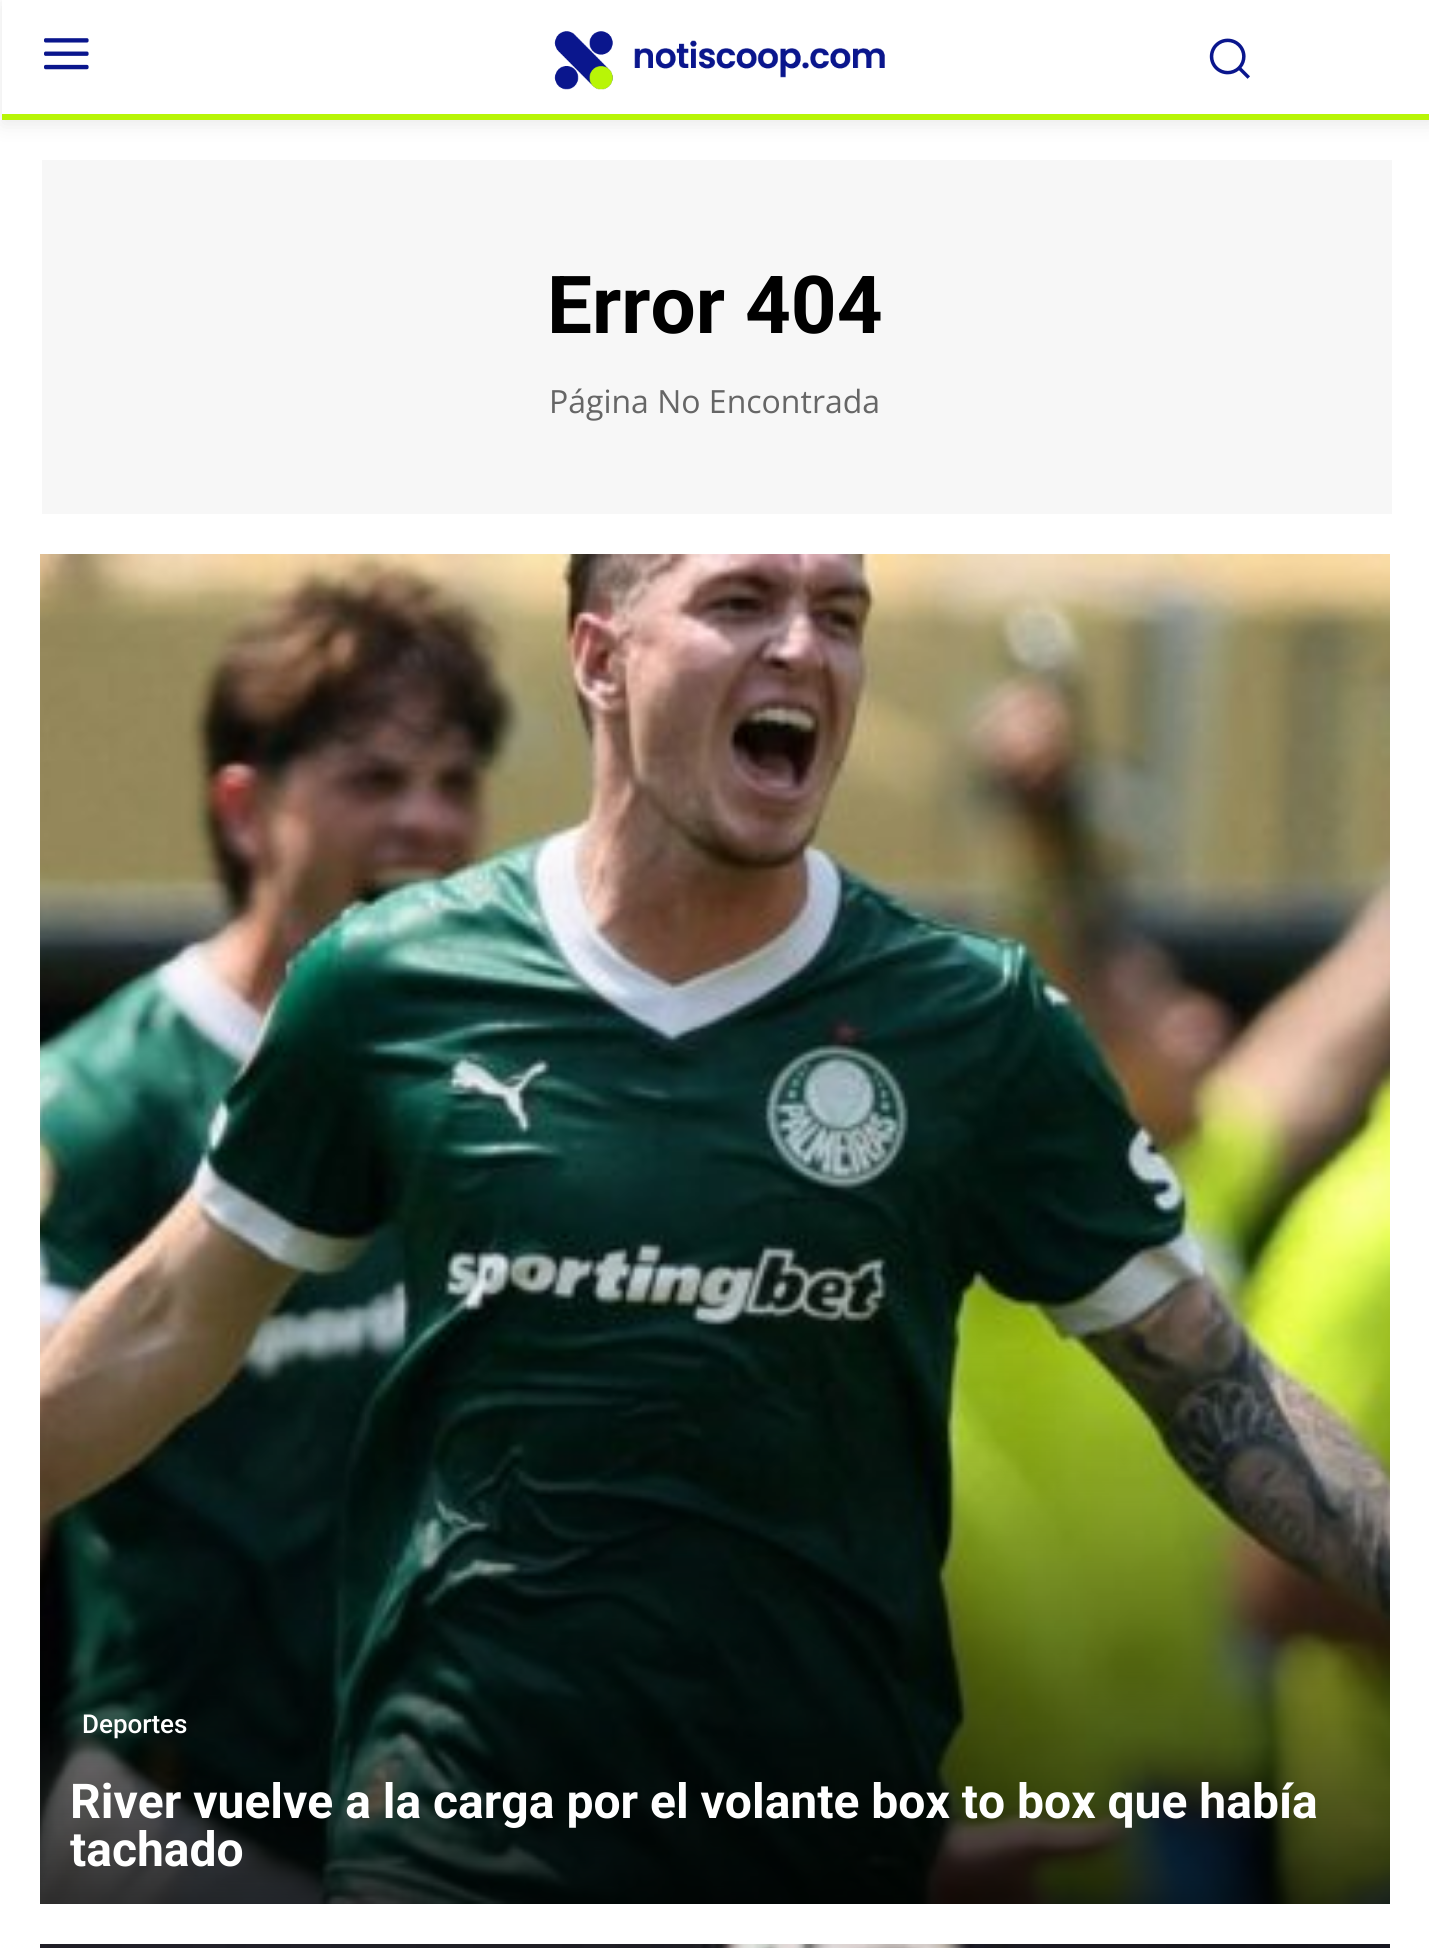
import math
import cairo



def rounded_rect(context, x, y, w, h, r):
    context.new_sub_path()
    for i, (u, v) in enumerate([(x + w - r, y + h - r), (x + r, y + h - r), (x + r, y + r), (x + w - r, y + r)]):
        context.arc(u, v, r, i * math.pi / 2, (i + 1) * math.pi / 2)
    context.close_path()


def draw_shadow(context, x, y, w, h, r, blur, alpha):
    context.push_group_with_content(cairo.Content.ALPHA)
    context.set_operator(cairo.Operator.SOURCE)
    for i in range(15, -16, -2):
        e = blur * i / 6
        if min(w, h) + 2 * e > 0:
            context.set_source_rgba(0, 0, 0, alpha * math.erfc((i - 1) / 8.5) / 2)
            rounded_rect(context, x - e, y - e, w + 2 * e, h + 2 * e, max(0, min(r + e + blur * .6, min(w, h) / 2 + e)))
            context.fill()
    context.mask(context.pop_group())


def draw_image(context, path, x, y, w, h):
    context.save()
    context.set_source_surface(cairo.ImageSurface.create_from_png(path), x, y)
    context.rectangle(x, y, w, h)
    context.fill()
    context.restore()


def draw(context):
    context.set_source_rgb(1, 1, 1)
    context.paint()
    draw_image(context, "images/1.png", 44, 38, 45, 32)
    draw_image(context, "images/2.png", 554, 31, 331, 59)
    draw_image(context, "images/3.png", 1209, 38, 41, 41)
    context.set_source_rgb(184 / 255, 245 / 255, 7 / 255)
    context.rectangle(2, 114, 1427, 6)
    context.fill()
    context.save()
    context.set_fill_rule(cairo.FillRule.EVEN_ODD)
    context.new_path()
    context.move_to(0, 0)
    context.line_to(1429, 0)
    context.line_to(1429, 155)
    context.line_to(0, 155)
    context.close_path()
    context.move_to(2, 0)
    context.line_to(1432, 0)
    context.line_to(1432, 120)
    context.line_to(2, 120)
    context.close_path()
    context.clip()
    context.set_source_rgb(0, 0, 0)
    draw_shadow(context, 2, 4, 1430, 120, 0, 10, 0.09)
    context.restore()
    context.set_source_rgb(247 / 255, 247 / 255, 247 / 255)
    context.rectangle(42, 160, 1350, 354)
    context.fill()
    draw_image(context, "images/4.png", 40, 554, 1350, 1350)
    draw_image(context, "images/5.png", 40, 1944, 1350, 4)
    context.select_font_face("Roboto", cairo.FontSlant.NORMAL, cairo.FontWeight.BOLD)
    context.set_font_size(80)
    context.set_source_rgb(0, 0, 0)
    context.move_to(547, 333)
    context.show_text("Error 404")
    context.select_font_face("Open Sans")
    context.set_font_size(32)
    context.set_source_rgb(102 / 255, 102 / 255, 102 / 255)
    context.move_to(549, 413)
    context.show_text("Página No Encontrada")
    context.select_font_face("Roboto Medium")
    context.set_font_size(26)
    context.set_source_rgb(1, 1, 1)
    context.move_to(82, 1733)
    context.show_text("Deportes")
    context.select_font_face("Roboto", cairo.FontSlant.NORMAL, cairo.FontWeight.BOLD)
    context.set_font_size(48)
    context.move_to(70, 1818)
    context.show_text("River vuelve a la carga por el volante box to box que había")
    context.move_to(70, 1866)
    context.show_text("tachado")


surface = cairo.ImageSurface(cairo.Format.RGB24, 1429, 1948)
context = cairo.Context(surface)
options = cairo.FontOptions()
options.set_hint_metrics(cairo.HintMetrics.OFF)
options.set_hint_style(cairo.HintStyle.NONE)
context.set_font_options(options)
context.set_miter_limit(4)
draw(context)
surface.write_to_png("out.png")
